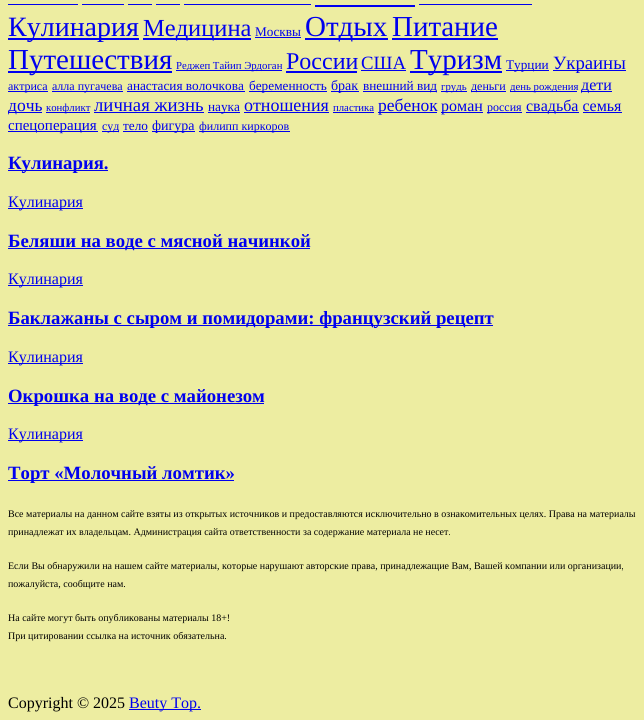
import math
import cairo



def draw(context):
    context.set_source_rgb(237 / 255, 237 / 255, 161 / 255)
    context.paint()
    context.set_source_rgb(0, 0, 238 / 255)
    context.rectangle(8, 4, 70, 1)
    context.fill()
    context.rectangle(82, 4, 42, 1)
    context.fill()
    context.rectangle(128, 4, 24, 1)
    context.fill()
    context.rectangle(156, 4, 24, 1)
    context.fill()
    context.rectangle(184, 4, 127, 1)
    context.fill()
    context.rectangle(419, 4, 113, 1)
    context.fill()
    context.rectangle(315, 5, 100, 2)
    context.fill()
    context.rectangle(8, 38, 131, 2)
    context.fill()
    context.rectangle(143, 38, 108, 2)
    context.fill()
    context.rectangle(255, 37, 46, 1)
    context.fill()
    context.rectangle(305, 38, 83, 2)
    context.fill()
    context.rectangle(392, 38, 106, 2)
    context.fill()
    context.rectangle(8, 71, 164, 2)
    context.fill()
    context.rectangle(176, 70, 106, 1)
    context.fill()
    context.rectangle(286, 71, 71, 2)
    context.fill()
    context.rectangle(361, 70, 45, 1)
    context.fill()
    context.rectangle(410, 71, 92, 2)
    context.fill()
    context.rectangle(506, 70, 43, 1)
    context.fill()
    context.rectangle(553, 70, 73, 1)
    context.fill()
    context.rectangle(8, 91, 40, 1)
    context.fill()
    context.rectangle(52, 91, 71, 1)
    context.fill()
    context.rectangle(127, 91, 118, 1)
    context.fill()
    context.rectangle(249, 91, 78, 1)
    context.fill()
    context.rectangle(331, 91, 28, 1)
    context.fill()
    context.rectangle(363, 91, 74, 1)
    context.fill()
    context.rectangle(441, 91, 26, 1)
    context.fill()
    context.rectangle(471, 91, 35, 1)
    context.fill()
    context.rectangle(510, 91, 67, 1)
    context.fill()
    context.rectangle(581, 91, 31, 1)
    context.fill()
    context.rectangle(8, 112, 34, 1)
    context.fill()
    context.rectangle(46, 112, 44, 1)
    context.fill()
    context.rectangle(94, 112, 110, 1)
    context.fill()
    context.rectangle(208, 112, 32, 1)
    context.fill()
    context.rectangle(244, 112, 85, 1)
    context.fill()
    context.rectangle(333, 112, 41, 1)
    context.fill()
    context.rectangle(378, 112, 59, 1)
    context.fill()
    context.rectangle(441, 112, 42, 1)
    context.fill()
    context.rectangle(487, 112, 35, 1)
    context.fill()
    context.rectangle(526, 112, 53, 1)
    context.fill()
    context.rectangle(583, 112, 39, 1)
    context.fill()
    context.rectangle(8, 131, 90, 1)
    context.fill()
    context.rectangle(102, 131, 17, 1)
    context.fill()
    context.rectangle(123, 131, 25, 1)
    context.fill()
    context.rectangle(152, 131, 43, 1)
    context.fill()
    context.rectangle(199, 131, 91, 1)
    context.fill()
    context.rectangle(8, 170, 100, 1)
    context.fill()
    context.rectangle(8, 208, 75, 1)
    context.fill()
    context.rectangle(8, 248, 302, 1)
    context.fill()
    context.rectangle(8, 285, 75, 1)
    context.fill()
    context.rectangle(8, 325, 485, 1)
    context.fill()
    context.rectangle(8, 363, 75, 1)
    context.fill()
    context.rectangle(8, 403, 256, 1)
    context.fill()
    context.rectangle(8, 440, 75, 1)
    context.fill()
    context.rectangle(8, 480, 226, 1)
    context.fill()
    context.rectangle(129, 709, 72, 1)
    context.fill()
    context.select_font_face("Liberation Serif")
    context.set_font_size(28)
    context.move_to(8, 36)
    context.show_text("Кулинария")
    context.set_font_size(24.5)
    context.move_to(143, 36)
    context.show_text("Медицина")
    context.set_font_size(13.25)
    context.move_to(255, 36)
    context.show_text("Москвы")
    context.set_font_size(29)
    context.move_to(305, 36)
    context.show_text("Отдых")
    context.move_to(392, 36)
    context.show_text("Питание")
    context.move_to(8, 69)
    context.show_text("Путешествия")
    context.set_font_size(10.75)
    context.move_to(176, 69)
    context.show_text("Реджеп Тайип Эрдоган")
    context.set_font_size(24)
    context.move_to(286, 69)
    context.show_text("России")
    context.set_font_size(18.75)
    context.move_to(361, 69)
    context.show_text("США")
    context.set_font_size(29)
    context.move_to(410, 69)
    context.show_text("Туризм")
    context.set_font_size(13.25)
    context.move_to(506, 69)
    context.show_text("Турции")
    context.set_font_size(18.75)
    context.move_to(553, 69)
    context.show_text("Украины")
    context.set_font_size(12)
    context.move_to(8, 90)
    context.show_text("актриса")
    context.move_to(52, 90)
    context.show_text("алла пугачева")
    context.set_font_size(13.25)
    context.move_to(127, 90)
    context.show_text("анастасия волочкова")
    context.move_to(249, 90)
    context.show_text("беременность")
    context.set_font_size(14)
    context.move_to(331, 90)
    context.show_text("брак")
    context.set_font_size(13.25)
    context.move_to(363, 90)
    context.show_text("внешний вид")
    context.set_font_size(10.75)
    context.move_to(441, 90)
    context.show_text("грудь")
    context.set_font_size(12)
    context.move_to(471, 90)
    context.show_text("деньги")
    context.set_font_size(10.75)
    context.move_to(510, 90)
    context.show_text("день рождения")
    context.set_font_size(16)
    context.move_to(581, 90)
    context.show_text("дети")
    context.set_font_size(17.5)
    context.move_to(8, 111)
    context.show_text("дочь")
    context.set_font_size(10.75)
    context.move_to(46, 111)
    context.show_text("конфликт")
    context.set_font_size(18.75)
    context.move_to(94, 111)
    context.show_text("личная жизнь")
    context.set_font_size(13.25)
    context.move_to(208, 111)
    context.show_text("наука")
    context.set_font_size(18)
    context.move_to(244, 111)
    context.show_text("отношения")
    context.set_font_size(10.75)
    context.move_to(333, 111)
    context.show_text("пластика")
    context.set_font_size(17.5)
    context.move_to(378, 111)
    context.show_text("ребенок")
    context.set_font_size(16)
    context.move_to(441, 111)
    context.show_text("роман")
    context.set_font_size(12)
    context.move_to(487, 111)
    context.show_text("россия")
    context.set_font_size(16)
    context.move_to(526, 111)
    context.show_text("свадьба семья")
    context.set_font_size(15)
    context.move_to(8, 130)
    context.show_text("спецоперация")
    context.set_font_size(12)
    context.move_to(102, 130)
    context.show_text("суд")
    context.set_font_size(13.25)
    context.move_to(123, 130)
    context.show_text("тело")
    context.set_font_size(14)
    context.move_to(152, 130)
    context.show_text("фигура")
    context.set_font_size(12)
    context.move_to(199, 130)
    context.show_text("филипп киркоров")
    context.select_font_face("Liberation Serif", cairo.FontSlant.NORMAL, cairo.FontWeight.BOLD)
    context.set_font_size(18.75)
    context.move_to(8, 169)
    context.show_text("Кулинария.")
    context.select_font_face("Liberation Serif")
    context.set_font_size(16)
    context.move_to(8, 207)
    context.show_text("Кулинария")
    context.select_font_face("Liberation Serif", cairo.FontSlant.NORMAL, cairo.FontWeight.BOLD)
    context.set_font_size(18.75)
    context.move_to(8, 247)
    context.show_text("Беляши на воде с мясной начинкой")
    context.select_font_face("Liberation Serif")
    context.set_font_size(16)
    context.move_to(8, 284)
    context.show_text("Кулинария")
    context.select_font_face("Liberation Serif", cairo.FontSlant.NORMAL, cairo.FontWeight.BOLD)
    context.set_font_size(18.75)
    context.move_to(8, 324)
    context.show_text("Баклажаны с сыром и помидорами: французский рецепт")
    context.select_font_face("Liberation Serif")
    context.set_font_size(16)
    context.move_to(8, 362)
    context.show_text("Кулинария")
    context.select_font_face("Liberation Serif", cairo.FontSlant.NORMAL, cairo.FontWeight.BOLD)
    context.set_font_size(18.75)
    context.move_to(8, 402)
    context.show_text("Окрошка на воде с майонезом")
    context.select_font_face("Liberation Serif")
    context.set_font_size(16)
    context.move_to(8, 439)
    context.show_text("Кулинария")
    context.select_font_face("Liberation Serif", cairo.FontSlant.NORMAL, cairo.FontWeight.BOLD)
    context.set_font_size(18.75)
    context.move_to(8, 479)
    context.show_text("Торт «Молочный ломтик»")
    context.select_font_face("Liberation Serif")
    context.set_font_size(10)
    context.set_source_rgb(0, 0, 0)
    context.move_to(8, 517)
    context.show_text("Все материалы на данном сайте взяты из открытых источников и предоставляются исключительно в ознакомительных целях. Права на материалы")
    context.move_to(8, 535)
    context.show_text("принадлежат их владельцам. Администрация сайта ответственности за содержание материала не несет.")
    context.move_to(8, 569)
    context.show_text("Если Вы обнаружили на нашем сайте материалы, которые нарушают авторские права, принадлежащие Вам, Вашей компании или организации,")
    context.move_to(8, 587)
    context.show_text("пожалуйста, сообщите нам.")
    context.move_to(8, 621)
    context.show_text("На сайте могут быть опубликованы материалы 18+!")
    context.move_to(8, 639)
    context.show_text("При цитировании ссылка на источник обязательна.")
    context.set_font_size(16)
    context.move_to(8, 708)
    context.show_text("Copyright © 2025")
    context.set_source_rgb(0, 0, 238 / 255)
    context.move_to(129, 708)
    context.show_text("Beuty Top.")


surface = cairo.ImageSurface(cairo.Format.RGB24, 644, 720)
context = cairo.Context(surface)
options = cairo.FontOptions()
options.set_hint_metrics(cairo.HintMetrics.OFF)
options.set_hint_style(cairo.HintStyle.NONE)
context.set_font_options(options)
context.set_miter_limit(4)
draw(context)
surface.write_to_png("out.png")
